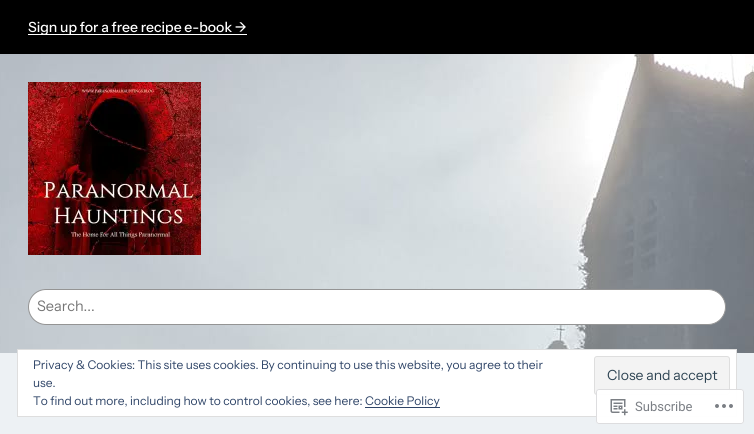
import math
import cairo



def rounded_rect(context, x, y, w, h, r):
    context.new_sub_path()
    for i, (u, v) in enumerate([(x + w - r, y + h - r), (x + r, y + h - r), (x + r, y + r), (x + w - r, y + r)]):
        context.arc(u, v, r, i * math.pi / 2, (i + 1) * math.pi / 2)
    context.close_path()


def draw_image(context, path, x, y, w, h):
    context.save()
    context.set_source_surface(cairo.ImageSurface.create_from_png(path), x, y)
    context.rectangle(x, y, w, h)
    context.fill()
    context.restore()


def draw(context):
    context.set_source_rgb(1, 1, 1)
    context.paint()
    draw_image(context, "images/1.png", 0, 54, 754, 299)
    context.set_source_rgb(0, 0, 0)
    context.rectangle(0, 0, 754, 54)
    context.fill()
    context.set_source_rgb(1, 1, 1)
    context.rectangle(28, 34, 219, 1)
    context.fill()
    draw_image(context, "images/2.png", 28, 82, 173, 173)
    rounded_rect(context, 28.5, 289.5, 697, 35, 17.5)
    context.fill_preserve()
    context.set_source_rgb(148 / 255, 148 / 255, 148 / 255)
    context.set_line_width(1)
    context.stroke()
    context.set_source_rgb(237 / 255, 241 / 255, 244 / 255)
    context.rectangle(0, 353, 754, 81)
    context.fill()
    context.set_source_rgb(1, 1, 1)
    context.rectangle(17.5, 349.5, 719, 67)
    context.fill_preserve()
    context.set_source_rgb(222 / 255, 222 / 255, 222 / 255)
    context.stroke()
    context.set_source_rgb(243 / 255, 243 / 255, 243 / 255)
    rounded_rect(context, 594.5, 356.5, 135, 38, 2.5)
    context.fill_preserve()
    context.set_source_rgb(222 / 255, 222 / 255, 222 / 255)
    context.stroke()
    context.set_source_rgb(46 / 255, 68 / 255, 103 / 255)
    context.rectangle(365, 407, 75, 1)
    context.fill()
    context.set_source_rgba(1, 1, 1, 0.98)
    rounded_rect(context, 596, 389, 148, 35, 3)
    context.fill()
    rounded_rect(context, 596.5, 389.5, 147, 34, 2.5)
    context.set_source_rgba(220 / 255, 220 / 255, 222 / 255, 0.98)
    context.stroke()
    draw_image(context, "images/3.png", 610, 399, 18, 17)
    draw_image(context, "images/4.png", 715, 404, 18, 4)
    context.select_font_face("Instrument Sans Medium")
    context.set_font_size(14)
    context.set_source_rgb(1, 1, 1)
    context.move_to(28, 32)
    context.show_text("Sign up for a free recipe e-book →")
    context.select_font_face("Instrument Sans")
    context.set_font_size(14.5)
    context.set_source_rgb(117 / 255, 117 / 255, 117 / 255)
    context.move_to(37, 311)
    context.show_text("Search...")
    context.set_font_size(12)
    context.set_source_rgb(46 / 255, 68 / 255, 103 / 255)
    context.move_to(33, 369)
    context.show_text("Privacy & Cookies: This site uses cookies. By continuing to use this website, you agree to their")
    context.set_font_size(14)
    context.set_source_rgb(46 / 255, 68 / 255, 83 / 255)
    context.move_to(607, 380)
    context.show_text("Close and accept")
    context.set_font_size(12)
    context.set_source_rgb(46 / 255, 68 / 255, 103 / 255)
    context.move_to(33, 387)
    context.show_text("use.")
    context.move_to(33, 405)
    context.show_text("To find out more, including how to control cookies, see here:")
    context.move_to(365, 405)
    context.show_text("Cookie Policy")
    context.select_font_face("Roboto")
    context.set_font_size(13)
    context.set_source_rgb(123 / 255, 127 / 255, 133 / 255)
    context.move_to(635, 411)
    context.show_text("Subscribe")


surface = cairo.ImageSurface(cairo.Format.RGB24, 754, 434)
context = cairo.Context(surface)
options = cairo.FontOptions()
options.set_hint_metrics(cairo.HintMetrics.OFF)
options.set_hint_style(cairo.HintStyle.NONE)
context.set_font_options(options)
context.set_miter_limit(4)
draw(context)
surface.write_to_png("out.png")
